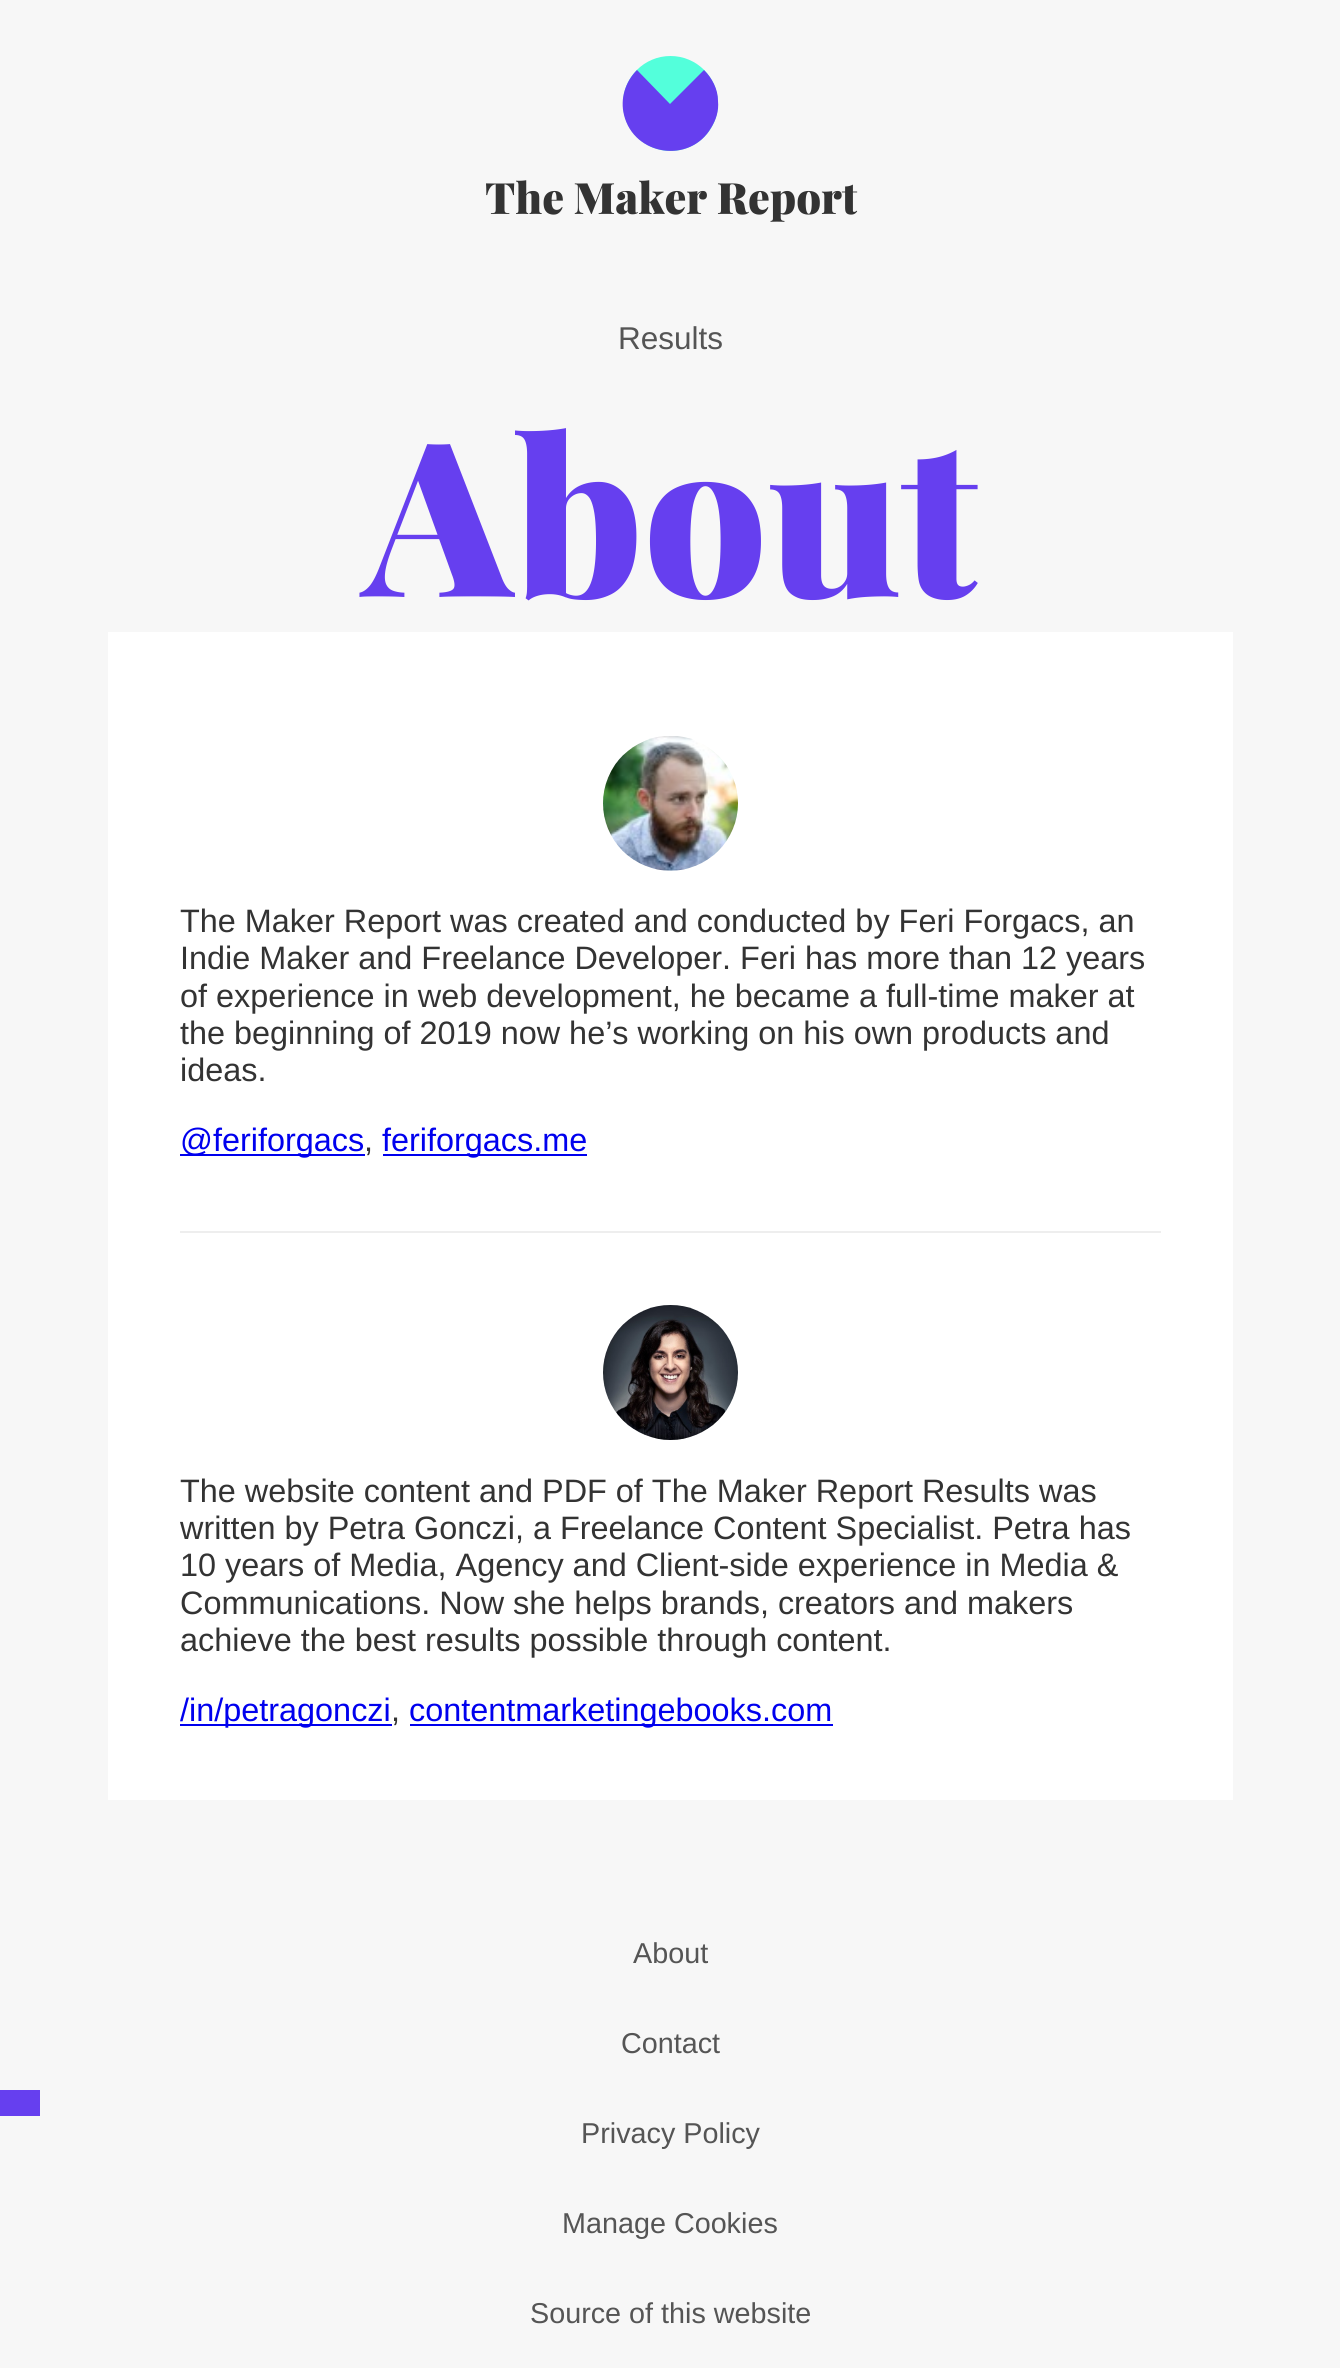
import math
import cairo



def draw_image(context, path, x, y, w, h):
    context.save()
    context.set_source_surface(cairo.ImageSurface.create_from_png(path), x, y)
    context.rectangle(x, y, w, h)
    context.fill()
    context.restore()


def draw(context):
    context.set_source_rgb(247 / 255, 247 / 255, 247 / 255)
    context.paint()
    context.set_source_rgb(102 / 255, 63 / 255, 239 / 255)
    context.rectangle(0, 2090, 40, 26)
    context.fill()
    context.set_source_rgb(83 / 255, 1, 219 / 255)
    context.arc(670.5, 103.5, 47.5, 0, 2 * math.pi)
    context.fill()
    context.set_source_rgb(102 / 255, 63 / 255, 239 / 255)
    context.new_path()
    context.move_to(704, 70)
    context.curve_to(712, 78, 718, 89, 718, 101)
    context.curve_to(719, 111, 716, 120, 711, 128)
    context.curve_to(690, 164, 634, 156, 624, 115)
    context.curve_to(620, 99, 625, 82, 637, 70)
    context.line_to(670, 104)
    context.close_path()
    context.fill()
    context.set_source_rgb(1, 1, 1)
    context.rectangle(108, 632, 1125, 1168)
    context.fill()
    draw_image(context, "images/1.png", 603, 736, 135, 135)
    context.set_source_rgb(0, 0, 238 / 255)
    context.rectangle(180, 1154, 185, 2)
    context.fill()
    context.rectangle(383, 1154, 204, 2)
    context.fill()
    context.set_source_rgb(238 / 255, 238 / 255, 238 / 255)
    context.rectangle(180, 1231, 981, 2)
    context.fill()
    draw_image(context, "images/2.png", 603, 1305, 135, 135)
    context.set_source_rgb(0, 0, 238 / 255)
    context.rectangle(180, 1724, 212, 2)
    context.fill()
    context.rectangle(410, 1724, 423, 2)
    context.fill()
    context.select_font_face("Playfair Display Black")
    context.set_font_size(43.25)
    context.set_source_rgb(51 / 255, 51 / 255, 51 / 255)
    context.move_to(485, 214)
    context.show_text("The Maker Report")
    context.select_font_face("Liberation Sans")
    context.set_font_size(31.5)
    context.set_source_rgb(85 / 255, 85 / 255, 85 / 255)
    context.move_to(618, 349)
    context.show_text("Results")
    context.select_font_face("Playfair Display Black")
    context.set_font_size(216)
    context.set_source_rgb(102 / 255, 63 / 255, 239 / 255)
    context.move_to(364, 597)
    context.show_text("About")
    context.select_font_face("Liberation Sans")
    context.set_font_size(32.4)
    context.set_source_rgb(51 / 255, 51 / 255, 51 / 255)
    context.move_to(180, 932)
    context.show_text("The Maker Report was created and conducted by Feri Forgacs, an")
    context.move_to(180, 969)
    context.show_text("Indie Maker and Freelance Developer. Feri has more than 12 years")
    context.move_to(180, 1007)
    context.show_text("of experience in web development, he became a full-time maker at")
    context.move_to(180, 1044)
    context.show_text("the beginning of 2019 now he’s working on his own products and")
    context.move_to(180, 1081)
    context.show_text("ideas.")
    context.set_source_rgb(0, 0, 238 / 255)
    context.move_to(180, 1151)
    context.show_text("@feriforgacs")
    context.set_source_rgb(51 / 255, 51 / 255, 51 / 255)
    context.move_to(364, 1151)
    context.show_text(",")
    context.set_source_rgb(0, 0, 238 / 255)
    context.move_to(382, 1151)
    context.show_text("feriforgacs.me")
    context.set_source_rgb(51 / 255, 51 / 255, 51 / 255)
    context.move_to(180, 1502)
    context.show_text("The website content and PDF of The Maker Report Results was")
    context.move_to(180, 1539)
    context.show_text("written by Petra Gonczi, a Freelance Content Specialist. Petra has")
    context.move_to(180, 1576)
    context.show_text("10 years of Media, Agency and Client-side experience in Media &")
    context.move_to(180, 1614)
    context.show_text("Communications. Now she helps brands, creators and makers")
    context.move_to(180, 1651)
    context.show_text("achieve the best results possible through content.")
    context.set_source_rgb(0, 0, 238 / 255)
    context.move_to(180, 1721)
    context.show_text("/in/petragonczi")
    context.set_source_rgb(51 / 255, 51 / 255, 51 / 255)
    context.move_to(391, 1721)
    context.show_text(",")
    context.set_source_rgb(0, 0, 238 / 255)
    context.move_to(409, 1721)
    context.show_text("contentmarketingebooks.com")
    context.set_font_size(28.75)
    context.set_source_rgb(85 / 255, 85 / 255, 85 / 255)
    context.move_to(633, 1963)
    context.show_text("About")
    context.move_to(621, 2053)
    context.show_text("Contact")
    context.move_to(581, 2143)
    context.show_text("Privacy Policy")
    context.move_to(562, 2233)
    context.show_text("Manage Cookies")
    context.move_to(530, 2323)
    context.show_text("Source of this website")


surface = cairo.ImageSurface(cairo.Format.RGB24, 1340, 2368)
context = cairo.Context(surface)
options = cairo.FontOptions()
options.set_hint_metrics(cairo.HintMetrics.OFF)
options.set_hint_style(cairo.HintStyle.NONE)
context.set_font_options(options)
context.set_miter_limit(4)
draw(context)
surface.write_to_png("out.png")
